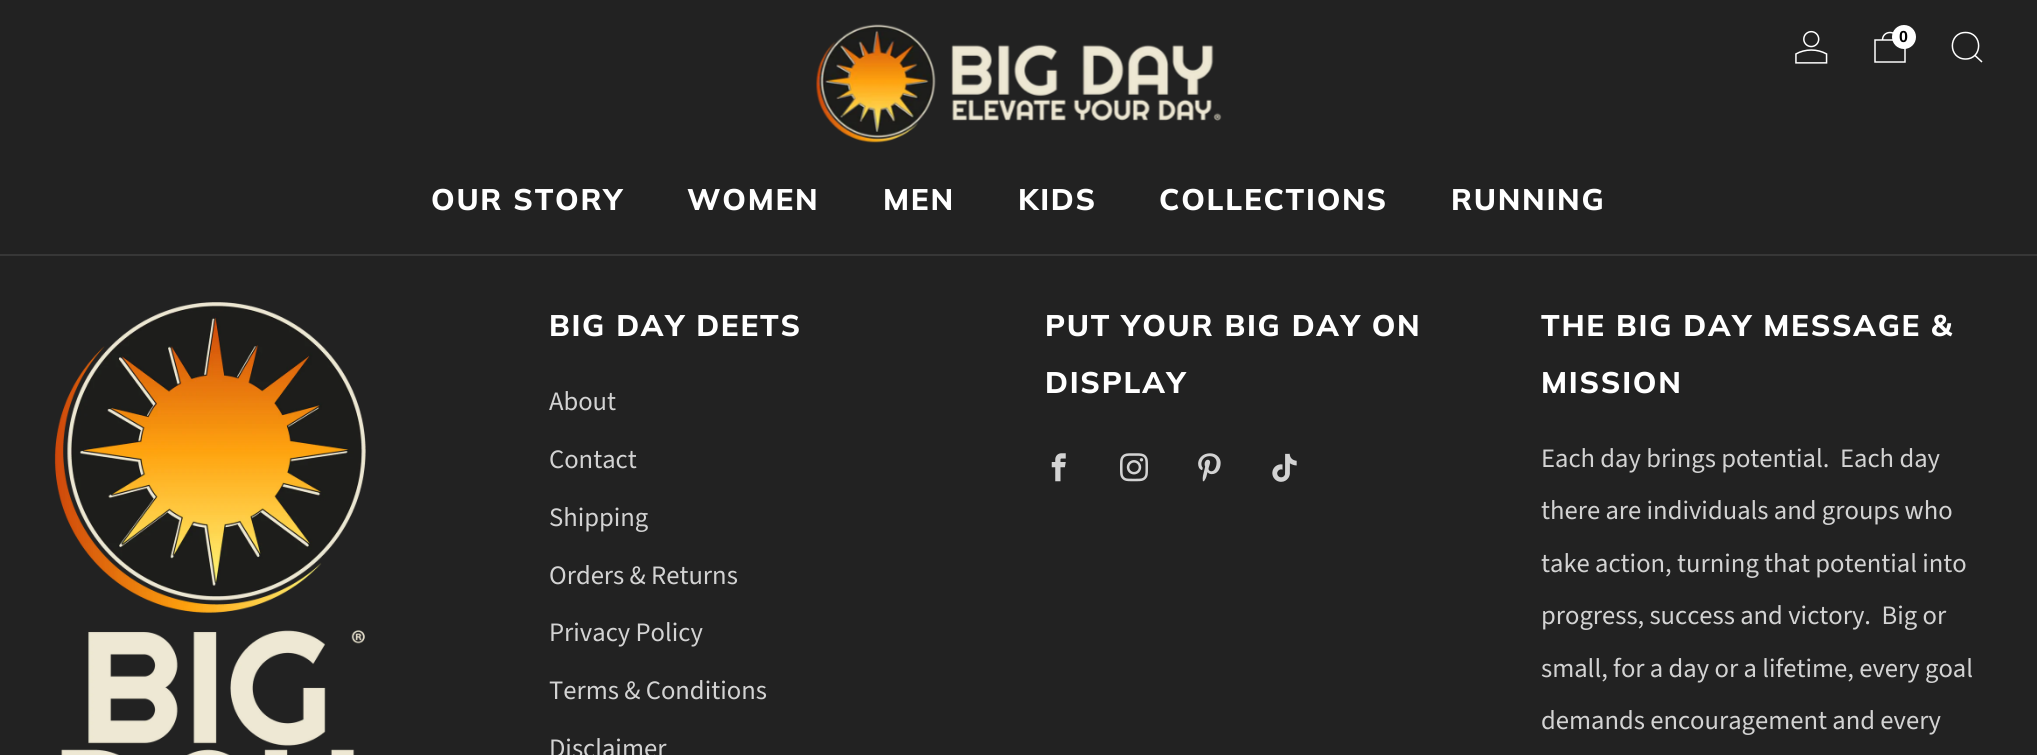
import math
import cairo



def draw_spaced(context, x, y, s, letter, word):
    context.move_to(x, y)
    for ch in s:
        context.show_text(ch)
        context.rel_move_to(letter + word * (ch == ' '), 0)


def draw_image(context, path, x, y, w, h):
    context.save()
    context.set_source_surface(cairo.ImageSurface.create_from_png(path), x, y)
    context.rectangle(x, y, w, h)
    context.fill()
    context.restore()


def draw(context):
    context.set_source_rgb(34 / 255, 34 / 255, 34 / 255)
    context.paint()
    context.set_source_rgb(55 / 255, 55 / 255, 55 / 255)
    context.rectangle(0, 254, 2037, 2)
    context.fill()
    draw_image(context, "images/1.png", 816, 24, 406, 119)
    draw_image(context, "images/2.png", 1795, 30, 33, 34)
    context.new_path()
    context.move_to(1875, 40)
    context.line_to(1905, 40)
    context.line_to(1905, 62)
    context.line_to(1875, 62)
    context.close_path()
    context.move_to(1897.5, 40)
    context.curve_to(1897.5, 30, 1882.5, 30, 1882.5, 40)
    context.set_source_rgb(1, 1, 1)
    context.set_line_width(1.5)
    context.stroke()
    context.arc(1904, 37, 12, 0, 2 * math.pi)
    context.fill()
    context.new_path()
    context.move_to(1965.5, 59)
    context.curve_to(1983, 59, 1983, 32.5, 1965.5, 32.5)
    context.curve_to(1948, 32.5, 1948, 59, 1965.5, 59)
    context.close_path()
    context.move_to(1975, 55.5)
    context.line_to(1982, 62)
    context.stroke()
    draw_image(context, "images/3.png", 54, 302, 312, 453)
    draw_image(context, "images/4.png", 1051, 453, 15, 29)
    draw_image(context, "images/5.png", 1120, 453, 28, 29)
    draw_image(context, "images/6.png", 1198, 453, 23, 29)
    draw_image(context, "images/7.png", 1272, 453, 25, 29)
    context.select_font_face("Liberation Sans", cairo.FontSlant.NORMAL, cairo.FontWeight.BOLD)
    context.set_font_size(16)
    context.set_source_rgb(0, 0, 0)
    context.move_to(1899, 42)
    context.show_text("0")
    context.select_font_face("Muli ExtraBold")
    context.set_font_size(29.75)
    context.set_source_rgb(1, 1, 1)
    draw_spaced(context, 431, 210, "OUR STORY", 1.75, 0)
    draw_spaced(context, 687, 210, "WOMEN", 1.75, 0)
    draw_spaced(context, 883, 210, "MEN", 1.75, 0)
    draw_spaced(context, 1018, 210, "KIDS", 1.75, 0)
    draw_spaced(context, 1159, 210, "COLLECTIONS", 1.75, 0)
    draw_spaced(context, 1451, 210, "RUNNING", 1.75, 0)
    draw_spaced(context, 549, 336, "BIG DAY DEETS", 1.75, 0)
    context.select_font_face("Source Sans Pro")
    context.set_font_size(26.6)
    context.set_source_rgb(211 / 255, 211 / 255, 211 / 255)
    context.move_to(549, 410)
    context.show_text("About")
    context.move_to(549, 468)
    context.show_text("Contact")
    context.move_to(549, 526)
    context.show_text("Shipping")
    context.move_to(549, 584)
    context.show_text("Orders & Returns")
    context.move_to(549, 641)
    context.show_text("Privacy Policy")
    context.move_to(549, 699)
    context.show_text("Terms & Conditions")
    context.move_to(549, 757)
    context.show_text("Disclaimer")
    context.select_font_face("Muli ExtraBold")
    context.set_font_size(29.75)
    context.set_source_rgb(1, 1, 1)
    draw_spaced(context, 1045, 336, "PUT YOUR BIG DAY ON", 1.75, 0)
    draw_spaced(context, 1045, 393, "DISPLAY", 1.75, 0)
    draw_spaced(context, 1541, 336, "THE BIG DAY MESSAGE &", 1.75, 0)
    draw_spaced(context, 1541, 393, "MISSION", 1.75, 0)
    context.select_font_face("Source Sans Pro")
    context.set_font_size(26.6)
    context.set_source_rgb(211 / 255, 211 / 255, 211 / 255)
    context.move_to(1541, 467)
    context.show_text("Each day brings potential.  Each day")
    context.move_to(1541, 519)
    context.show_text("there are individuals and groups who")
    context.move_to(1541, 572)
    context.show_text("take action, turning that potential into")
    context.move_to(1541, 624)
    context.show_text("progress, success and victory.  Big or")
    context.move_to(1541, 677)
    context.show_text("small, for a day or a lifetime, every goal")
    context.move_to(1541, 729)
    context.show_text("demands encouragement and every")


surface = cairo.ImageSurface(cairo.Format.RGB24, 2037, 755)
context = cairo.Context(surface)
options = cairo.FontOptions()
options.set_hint_metrics(cairo.HintMetrics.OFF)
options.set_hint_style(cairo.HintStyle.NONE)
context.set_font_options(options)
context.set_miter_limit(4)
draw(context)
surface.write_to_png("out.png")
